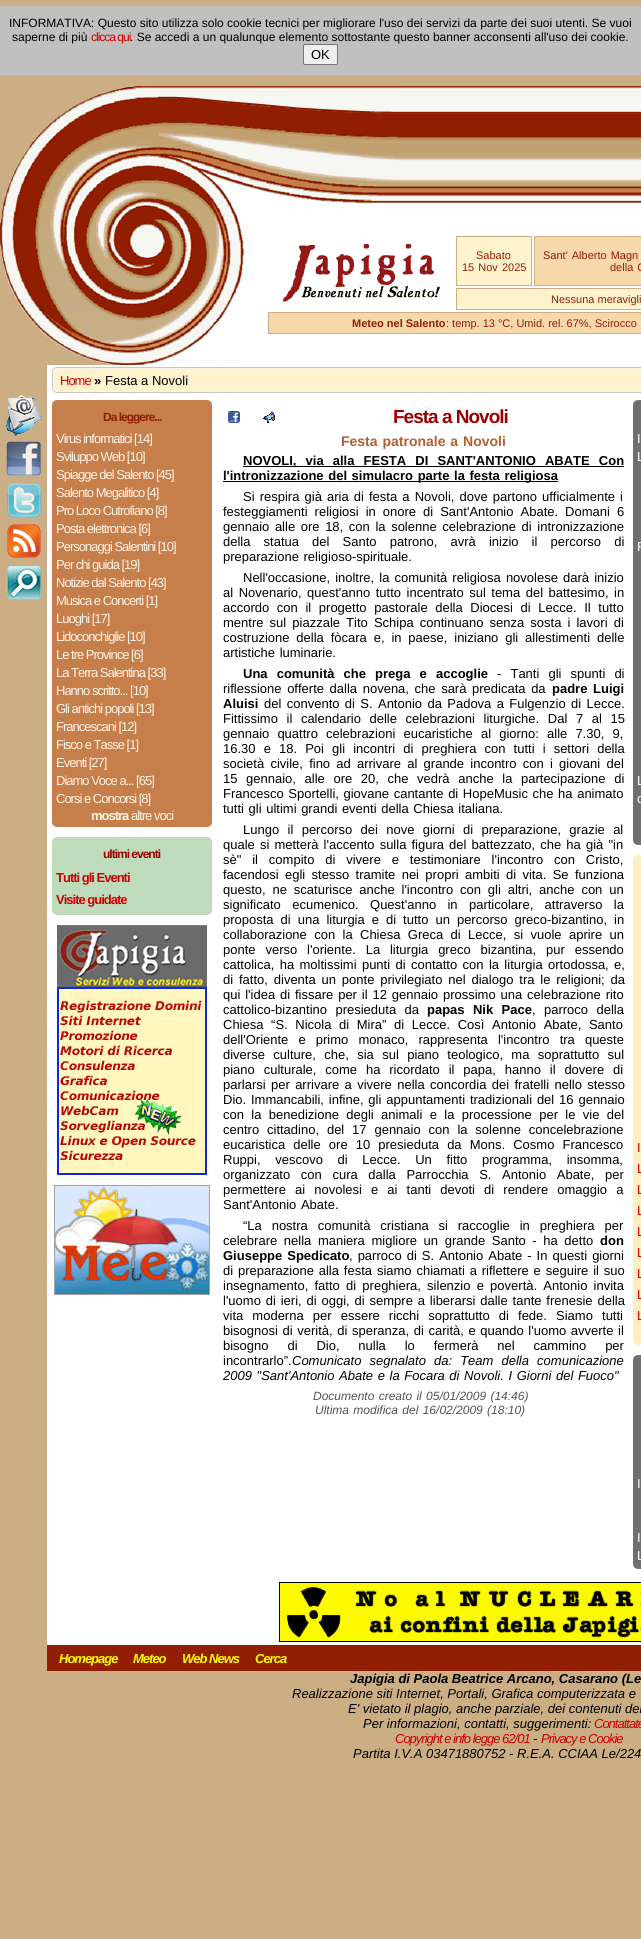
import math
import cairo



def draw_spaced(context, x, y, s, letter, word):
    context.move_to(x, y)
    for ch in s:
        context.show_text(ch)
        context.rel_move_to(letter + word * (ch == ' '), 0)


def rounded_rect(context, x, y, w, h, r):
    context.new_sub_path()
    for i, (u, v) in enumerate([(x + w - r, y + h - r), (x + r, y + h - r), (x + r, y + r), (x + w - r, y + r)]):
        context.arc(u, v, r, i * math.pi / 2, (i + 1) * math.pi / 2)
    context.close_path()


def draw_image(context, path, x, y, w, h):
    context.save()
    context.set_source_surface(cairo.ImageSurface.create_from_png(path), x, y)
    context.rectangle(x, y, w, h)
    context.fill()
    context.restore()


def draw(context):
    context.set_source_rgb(203 / 255, 174 / 255, 132 / 255)
    context.paint()
    context.set_source_rgb(192 / 255, 192 / 255, 192 / 255)
    context.rectangle(0, 6, 641, 69)
    context.fill()
    context.set_source_rgb(239 / 255, 239 / 255, 239 / 255)
    rounded_rect(context, 303.5, 44.5, 34, 20, 1.5)
    context.fill_preserve()
    context.set_source_rgb(118 / 255, 118 / 255, 118 / 255)
    context.set_line_width(1)
    context.stroke()
    draw_image(context, "images/1.png", 47, 86, 86, 118)
    draw_image(context, "images/2.png", 133, 86, 111, 118)
    draw_image(context, "images/3.png", 244, 86, 156, 118)
    draw_image(context, "images/4.png", 400, 86, 241, 27)
    draw_image(context, "images/5.png", 0, 126, 47, 210)
    draw_image(context, "images/6.png", 400, 113, 241, 91)
    draw_image(context, "images/7.png", 47, 204, 86, 161)
    draw_image(context, "images/8.png", 133, 204, 111, 161)
    context.set_source_rgb(1, 1, 1)
    context.rectangle(244, 204, 397, 161)
    context.fill()
    draw_image(context, "images/9.png", 283, 244, 157, 58)
    context.set_source_rgb(1, 243 / 255, 205 / 255)
    context.rectangle(456.5, 236.5, 75, 49)
    context.fill_preserve()
    context.set_source_rgb(203 / 255, 174 / 255, 132 / 255)
    context.stroke()
    context.set_source_rgb(247 / 255, 216 / 255, 170 / 255)
    context.rectangle(534.5, 236.5, 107, 49)
    context.fill_preserve()
    context.set_source_rgb(203 / 255, 174 / 255, 132 / 255)
    context.stroke()
    context.set_source_rgb(1, 243 / 255, 205 / 255)
    context.rectangle(456.5, 288.5, 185, 21)
    context.fill_preserve()
    context.set_source_rgb(203 / 255, 174 / 255, 132 / 255)
    context.stroke()
    context.set_source_rgb(247 / 255, 216 / 255, 170 / 255)
    context.rectangle(268.5, 312.5, 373, 21)
    context.fill_preserve()
    context.set_source_rgb(203 / 255, 174 / 255, 132 / 255)
    context.stroke()
    context.set_source_rgb(1, 1, 1)
    context.rectangle(47, 365, 594, 1280)
    context.fill()
    draw_image(context, "images/10.png", 52, 367, 5, 26)
    draw_image(context, "images/11.png", 57, 367, 584, 26)
    draw_image(context, "images/12.png", 6, 395, 36, 41)
    draw_image(context, "images/13.png", 6, 441, 35, 35)
    draw_image(context, "images/14.png", 7, 483, 34, 34)
    draw_image(context, "images/15.png", 7, 524, 34, 34)
    draw_image(context, "images/16.png", 6, 566, 35, 34)
    context.set_source_rgb(198 / 255, 126 / 255, 74 / 255)
    context.rectangle(52, 405, 160, 417)
    context.fill()
    draw_image(context, "images/17.png", 52, 822, 160, 5)
    draw_image(context, "images/18.png", 52, 400, 160, 5)
    context.set_source_rgb(190 / 255, 220 / 255, 187 / 255)
    context.rectangle(52, 842, 160, 68)
    context.fill()
    draw_image(context, "images/19.png", 52, 910, 160, 5)
    draw_image(context, "images/20.png", 52, 837, 160, 5)
    draw_image(context, "images/21.png", 57, 925, 150, 250)
    draw_image(context, "images/22.png", 54, 1185, 156, 110)
    draw_image(context, "images/23.png", 228, 411, 12, 12)
    draw_image(context, "images/24.png", 263, 411, 12, 12)
    context.set_source_rgb(0, 0, 0)
    context.rectangle(243, 466, 381, 1)
    context.fill()
    context.rectangle(223, 481, 335, 1)
    context.fill()
    context.set_source_rgb(111 / 255, 111 / 255, 111 / 255)
    context.rectangle(633, 400, 8, 445)
    context.fill()
    draw_image(context, "images/25.png", 633, 840, 6, 5)
    draw_image(context, "images/26.png", 633, 400, 6, 5)
    context.set_source_rgb(1, 238 / 255, 191 / 255)
    context.rectangle(633, 855, 8, 490)
    context.fill()
    draw_image(context, "images/27.png", 633, 1340, 4, 5)
    draw_image(context, "images/28.png", 633, 855, 6, 5)
    context.set_source_rgb(111 / 255, 111 / 255, 111 / 255)
    context.rectangle(633, 1355, 8, 214)
    context.fill()
    draw_image(context, "images/25.png", 633, 1564, 6, 5)
    draw_image(context, "images/26.png", 633, 1355, 6, 5)
    draw_image(context, "images/29.png", 279, 1582, 362, 60)
    context.set_source_rgb(146 / 255, 30 / 255, 2 / 255)
    context.rectangle(47, 1645, 594, 26)
    context.fill()
    context.select_font_face("Liberation Sans")
    context.set_font_size(12)
    context.set_source_rgb(0, 0, 0)
    context.move_to(9, 27)
    context.show_text("INFORMATIVA: Questo sito utilizza solo cookie tecnici per migliorare l'uso dei servizi da parte dei suoi utenti. Se vuoi")
    context.move_to(12, 41)
    context.show_text("saperne di più")
    context.set_source_rgb(203 / 255, 0, 0)
    draw_spaced(context, 91, 41, "clicca qui", -1, 0)
    context.set_source_rgb(0, 0, 0)
    context.move_to(130, 41)
    context.show_text(". Se accedi a un qualunque elemento sottostante questo banner acconsenti all'uso dei cookie.")
    context.set_font_size(13)
    context.move_to(311, 59)
    context.show_text("OK")
    context.set_font_size(11)
    context.set_source_rgb(146 / 255, 30 / 255, 2 / 255)
    context.move_to(476, 259)
    context.show_text("Sabato")
    draw_spaced(context, 462, 271, "15 Nov 2025", 0, 1)
    draw_spaced(context, 543, 259, "Sant' Alberto Magn", 0, 1)
    draw_spaced(context, 610, 271, "della C", 0, 1)
    context.move_to(551, 303)
    context.show_text("Nessuna meravigli")
    context.select_font_face("Liberation Sans", cairo.FontSlant.NORMAL, cairo.FontWeight.BOLD)
    context.move_to(352, 327)
    context.show_text("Meteo nel Salento")
    context.select_font_face("Liberation Sans")
    context.move_to(446, 327)
    context.show_text(": temp. 13 °C, Umid. rel. 67%, Scirocco")
    context.set_font_size(13)
    context.set_source_rgb(203 / 255, 0, 0)
    draw_spaced(context, 60, 385, "Home", -1, 0)
    context.select_font_face("Liberation Sans", cairo.FontSlant.NORMAL, cairo.FontWeight.BOLD)
    context.set_source_rgb(0, 0, 0)
    context.move_to(94, 385)
    context.show_text("»")
    context.select_font_face("Liberation Sans")
    context.move_to(105, 385)
    context.show_text("Festa a Novoli")
    context.select_font_face("Liberation Sans", cairo.FontSlant.NORMAL, cairo.FontWeight.BOLD)
    context.set_font_size(12)
    context.set_source_rgb(146 / 255, 30 / 255, 2 / 255)
    draw_spaced(context, 103, 421, "Da leggere...", -1, 0)
    context.select_font_face("Liberation Sans")
    context.set_font_size(13)
    context.set_source_rgb(1, 245 / 255, 231 / 255)
    draw_spaced(context, 56, 443, "Virus informatici [14]", -1, 0)
    draw_spaced(context, 56, 461, "Sviluppo Web [10]", -1, 0)
    draw_spaced(context, 56, 479, "Spiagge del Salento [45]", -1, 0)
    draw_spaced(context, 56, 497, "Salento Megalitico [4]", -1, 0)
    draw_spaced(context, 56, 515, "Pro Loco Cutrofiano [8]", -1, 0)
    draw_spaced(context, 56, 533, "Posta elettronica [6]", -1, 0)
    draw_spaced(context, 56, 551, "Personaggi Salentini [10]", -1, 0)
    draw_spaced(context, 56, 569, "Per chi guida [19]", -1, 0)
    draw_spaced(context, 56, 587, "Notizie dal Salento [43]", -1, 0)
    draw_spaced(context, 56, 605, "Musica e Concerti [1]", -1, 0)
    draw_spaced(context, 56, 623, "Luoghi [17]", -1, 0)
    draw_spaced(context, 56, 641, "Lidoconchiglie [10]", -1, 0)
    draw_spaced(context, 56, 659, "Le tre Province [6]", -1, 0)
    draw_spaced(context, 56, 677, "La Terra Salentina [33]", -1, 0)
    draw_spaced(context, 56, 695, "Hanno scritto... [10]", -1, 0)
    draw_spaced(context, 56, 713, "Gli antichi popoli [13]", -1, 0)
    draw_spaced(context, 56, 731, "Francescani [12]", -1, 0)
    draw_spaced(context, 56, 749, "Fisco e Tasse [1]", -1, 0)
    draw_spaced(context, 56, 767, "Eventi [27]", -1, 0)
    draw_spaced(context, 56, 785, "Diamo Voce a... [65]", -1, 0)
    draw_spaced(context, 56, 803, "Corsi e Concorsi [8]", -1, 0)
    context.select_font_face("Liberation Sans", cairo.FontSlant.NORMAL, cairo.FontWeight.BOLD)
    draw_spaced(context, 91, 820, "mostra", -1, 0)
    context.select_font_face("Liberation Sans")
    draw_spaced(context, 131, 820, "altre voci", -1, 0)
    context.select_font_face("Liberation Sans", cairo.FontSlant.NORMAL, cairo.FontWeight.BOLD)
    context.set_font_size(12)
    context.set_source_rgb(153 / 255, 0, 0)
    draw_spaced(context, 103, 858, "ultimi eventi", -1, 0)
    context.set_font_size(13)
    context.set_source_rgb(203 / 255, 0, 0)
    draw_spaced(context, 56, 882, "Tutti gli Eventi", -1, 0)
    draw_spaced(context, 56, 904, "Visite guidate", -1, 0)
    context.set_font_size(19)
    context.set_source_rgb(153 / 255, 0, 0)
    draw_spaced(context, 393, 423, "Festa a Novoli", -1, 0)
    context.set_font_size(14)
    context.set_source_rgb(178 / 255, 95 / 255, 47 / 255)
    draw_spaced(context, 341, 446, "Festa patronale a Novoli", 0, 1)
    context.set_font_size(13)
    context.set_source_rgb(0, 0, 0)
    draw_spaced(context, 243, 465, "NOVOLI, via alla FESTA DI SANT'ANTONIO ABATE Con", 0, 5.5)
    draw_spaced(context, 223, 480, "l'intronizzazione del simulacro parte la festa religiosa", 0, 1)
    context.select_font_face("Liberation Sans")
    draw_spaced(context, 243, 501, "Si respira già aria di festa a Novoli, dove partono ufficialmente i", 0, 1.5)
    draw_spaced(context, 223, 516, "festeggiamenti religiosi in onore di Sant'Antonio Abate. Domani 6", 0, 3.4)
    draw_spaced(context, 223, 531, "gennaio alle ore 18, con la solenne celebrazione di intronizzazione", 0, 2)
    draw_spaced(context, 223, 546, "della statua del Santo patrono, avrà inizio il percorso di", 0, 9.5)
    draw_spaced(context, 223, 561, "preparazione religioso-spirituale.", 0, 1)
    draw_spaced(context, 243, 582, "Nell'occasione, inoltre, la comunità religiosa novolese darà inizio", 0, 1.5)
    draw_spaced(context, 223, 597, "al Novenario, quest'anno tutto incentrato sul tema del battesimo, in", 0, 1.9)
    draw_spaced(context, 223, 612, "accordo con il progetto pastorale della Diocesi di Lecce. Il tutto", 0, 4)
    draw_spaced(context, 223, 627, "mentre sul piazzale Tito Schipa continuano senza sosta i lavori di", 0, 2.5)
    draw_spaced(context, 223, 642, "costruzione della fòcara e, in paese, iniziano gli allestimenti delle", 0, 3.25)
    draw_spaced(context, 223, 657, "artistiche luminarie.", 0, 1)
    context.select_font_face("Liberation Sans", cairo.FontSlant.NORMAL, cairo.FontWeight.BOLD)
    draw_spaced(context, 243, 678, "Una comunità che prega e accoglie", 0, 5.5)
    context.select_font_face("Liberation Sans")
    draw_spaced(context, 497, 678, "- Tanti gli spunti di", 0, 5.5)
    draw_spaced(context, 223, 693, "riflessione offerte dalla novena, che sarà predicata da", 0, 2)
    context.select_font_face("Liberation Sans", cairo.FontSlant.NORMAL, cairo.FontWeight.BOLD)
    draw_spaced(context, 552, 693, "padre Luigi", 0, 2)
    context.move_to(223, 708)
    context.show_text("Aluisi")
    context.select_font_face("Liberation Sans")
    draw_spaced(context, 264, 708, "del convento di S. Antonio da Padova a Fulgenzio di Lecce.", 0, 1.75)
    draw_spaced(context, 223, 723, "Fittissimo il calendario delle celebrazioni liturgiche. Dal 7 al 15", 0, 5)
    draw_spaced(context, 223, 738, "gennaio quattro celebrazioni eucaristiche al giorno: alle 7.30, 9,", 0, 4.5)
    draw_spaced(context, 223, 753, "16.30 e 18. Poi gli incontri di preghiera con tutti i settori della", 0, 4.5)
    draw_spaced(context, 223, 768, "società civile, fino ad arrivare al grande incontro con i giovani del", 0, 2.6)
    draw_spaced(context, 223, 783, "15 gennaio, alle ore 20, che vedrà anche la partecipazione di", 0, 5)
    draw_spaced(context, 223, 798, "Francesco Sportelli, giovane cantante di HopeMusic che ha animato", 0, 1)
    draw_spaced(context, 223, 813, "tutti gli ultimi grandi eventi della Chiesa italiana.", 0, 1)
    draw_spaced(context, 243, 834, "Lungo il percorso dei nove giorni di preparazione, grazie al", 0, 4.75)
    draw_spaced(context, 223, 849, "quale si metterà l'accento sulla figura del battezzato, che ha già \"in", 0, 1.5)
    draw_spaced(context, 223, 864, "sè\" il compito di vivere e testimoniare l'incontro con Cristo,", 0, 7.25)
    draw_spaced(context, 223, 879, "facendosi egli stesso tramite nei propri ambiti di vita. Se funziona", 0, 2.75)
    draw_spaced(context, 223, 894, "questo, ne scaturisce anche l'incontro con gli altri, anche con un", 0, 3.25)
    draw_spaced(context, 223, 909, "significato ecumenico. Quest'anno in particolare, attraverso la", 0, 7.75)
    draw_spaced(context, 223, 924, "proposta di una liturgia e di tutto un percorso greco-bizantino, in", 0, 3.4)
    draw_spaced(context, 223, 939, "collaborazione con la Chiesa Greca di Lecce, si vuole aprire un", 0, 3.75)
    draw_spaced(context, 223, 954, "ponte verso l'oriente. La liturgia greco bizantina, pur essendo", 0, 6.25)
    draw_spaced(context, 223, 969, "cattolica, ha moltissimi punti di contatto con la liturgia ortodossa, e,", 0, 1.75)
    draw_spaced(context, 223, 984, "di fatto, diventa un ponte privilegiato nel dialogo tra le religioni; da", 0, 2.25)
    draw_spaced(context, 223, 999, "qui l'idea di fissare per il 12 gennaio prossimo una celebrazione rito", 0, 1.25)
    draw_spaced(context, 223, 1014, "cattolico-bizantino presieduta da", 0, 4.75)
    context.select_font_face("Liberation Sans", cairo.FontSlant.NORMAL, cairo.FontWeight.BOLD)
    draw_spaced(context, 427, 1014, "papas Nik Pace", 0, 4.75)
    context.select_font_face("Liberation Sans")
    draw_spaced(context, 532, 1014, ", parroco della", 0, 4.75)
    draw_spaced(context, 223, 1029, "Chiesa “S. Nicola di Mira” di Lecce. Così Antonio Abate, Santo", 0, 4)
    draw_spaced(context, 223, 1044, "dell'Oriente e primo monaco, rappresenta l'incontro tra queste", 0, 6.5)
    draw_spaced(context, 223, 1059, "diverse culture, che, sia sul piano teologico, ma soprattutto sul", 0, 4.75)
    draw_spaced(context, 223, 1074, "piano culturale, come ha ricordato il papa, hanno il dovere di", 0, 5.25)
    draw_spaced(context, 223, 1089, "parlarsi per arrivare a vivere nella concordia dei fratelli nello stesso", 0, 1.75)
    draw_spaced(context, 223, 1104, "Dio. Immancabili, infine, gli appuntamenti tradizionali del 16 gennaio", 0, 1.25)
    draw_spaced(context, 223, 1119, "con la benedizione degli animali e la processione per le vie del", 0, 3.75)
    draw_spaced(context, 223, 1134, "centro cittadino, del 17 gennaio con la solenne concelebrazione", 0, 4.25)
    draw_spaced(context, 223, 1149, "eucaristica delle ore 10 presieduta da Mons. Cosmo Francesco", 0, 4.5)
    draw_spaced(context, 223, 1164, "Ruppi, vescovo di Lecce. Un fitto programma, insomma,", 0, 11)
    draw_spaced(context, 223, 1179, "organizzato con cura dalla Parrocchia S. Antonio Abate, per", 0, 7)
    draw_spaced(context, 223, 1194, "permettere ai novolesi e ai tanti devoti di rendere omaggio a", 0, 5.5)
    draw_spaced(context, 223, 1209, "Sant'Antonio Abate.", 0, 1)
    draw_spaced(context, 243, 1230, "“La nostra comunità cristiana si raccoglie in preghiera per", 0, 6.25)
    draw_spaced(context, 223, 1245, "celebrare nella maniera migliore un grande Santo - ha detto", 0, 3)
    context.select_font_face("Liberation Sans", cairo.FontSlant.NORMAL, cairo.FontWeight.BOLD)
    context.move_to(600, 1245)
    context.show_text("don")
    draw_spaced(context, 223, 1260, "Giuseppe Spedicato", 0, 1.4)
    context.select_font_face("Liberation Sans")
    draw_spaced(context, 349, 1260, ", parroco di S. Antonio Abate - In questi giorni", 0, 1.4)
    draw_spaced(context, 223, 1275, "di preparazione alla festa siamo chiamati a riflettere e seguire il suo", 0, 1.25)
    draw_spaced(context, 223, 1290, "insegnamento, fatto di preghiera, silenzio e povertà. Antonio invita", 0, 2.6)
    draw_spaced(context, 223, 1305, "l'uomo di ieri, di oggi, di sempre a liberarsi dalle tante frenesie della", 0, 1.25)
    draw_spaced(context, 223, 1320, "vita moderna per essere ricchi soprattutto di fede. Siamo tutti", 0, 5.5)
    draw_spaced(context, 223, 1335, "bisognosi di verità, di speranza, di carità, e quando l'uomo avverte il", 0, 1)
    draw_spaced(context, 223, 1350, "bisogno di Dio, nulla lo fermerà nel cammino per", 0, 15.25)
    context.move_to(223, 1365)
    context.show_text("incontrarlo”.")
    context.select_font_face("Liberation Sans", cairo.FontSlant.ITALIC)
    draw_spaced(context, 292, 1365, "Comunicato segnalato da: Team della comunicazione", 0, 4.5)
    draw_spaced(context, 223, 1380, "2009 \"Sant'Antonio Abate e la Focara di Novoli. I Giorni del Fuoco\"", 0, 1)
    context.select_font_face("Liberation Sans")
    context.set_source_rgb(1, 1, 1)
    draw_spaced(context, 637, 443, "I", -1, 0)
    draw_spaced(context, 637, 461, "L", -1, 0)
    draw_spaced(context, 637, 551, "F", -1, 0)
    draw_spaced(context, 637, 785, "L", -1, 0)
    draw_spaced(context, 637, 803, "c", -1, 0)
    context.set_source_rgb(203 / 255, 0, 0)
    draw_spaced(context, 637, 1152, "I", -1, 0)
    draw_spaced(context, 637, 1173, "L", -1, 0)
    draw_spaced(context, 637, 1194, "L", -1, 0)
    draw_spaced(context, 637, 1215, "L", -1, 0)
    draw_spaced(context, 637, 1236, "L", -1, 0)
    draw_spaced(context, 637, 1257, "L", -1, 0)
    draw_spaced(context, 637, 1278, "L", -1, 0)
    draw_spaced(context, 637, 1299, "L", -1, 0)
    draw_spaced(context, 637, 1320, "L", -1, 0)
    context.set_source_rgb(1, 1, 1)
    draw_spaced(context, 637, 1488, "I", -1, 0)
    draw_spaced(context, 637, 1542, "I", -1, 0)
    draw_spaced(context, 637, 1560, "L", -1, 0)
    context.select_font_face("Liberation Sans", cairo.FontSlant.ITALIC)
    context.set_font_size(12)
    context.set_source_rgb(82 / 255, 82 / 255, 82 / 255)
    draw_spaced(context, 313, 1400, "Documento creato il 05/01/2009 (14:46)", 0, 1)
    draw_spaced(context, 315, 1414, "Ultima modifica del 16/02/2009 (18:10)", 0, 1)
    context.select_font_face("Liberation Sans", cairo.FontSlant.ITALIC, cairo.FontWeight.BOLD)
    context.set_font_size(13)
    context.set_source_rgb(1, 1, 0)
    draw_spaced(context, 59, 1663, "Homepage", -1, 0)
    draw_spaced(context, 133, 1663, "Meteo", -1, 0)
    draw_spaced(context, 182, 1663, "Web News", -1, 0)
    draw_spaced(context, 255, 1663, "Cerca", -1, 0)
    context.set_source_rgb(0, 0, 0)
    context.move_to(350, 1683)
    context.show_text("Japigia di Paola Beatrice Arcano, Casarano (Le")
    context.select_font_face("Liberation Sans", cairo.FontSlant.ITALIC)
    context.move_to(292, 1698)
    context.show_text("Realizzazione siti Internet, Portali, Grafica computerizzata e")
    context.move_to(348, 1713)
    context.show_text("E' vietato il plagio, anche parziale, dei contenuti del")
    context.move_to(363, 1728)
    context.show_text("Per informazioni, contatti, suggerimenti:")
    context.set_source_rgb(203 / 255, 0, 0)
    draw_spaced(context, 594, 1728, "Contattate", -1, 0)
    draw_spaced(context, 395, 1743, "Copyright e info legge 62/01", -1, 0)
    context.set_source_rgb(0, 0, 0)
    context.move_to(533, 1743)
    context.show_text("-")
    context.set_source_rgb(203 / 255, 0, 0)
    draw_spaced(context, 541, 1743, "Privacy e Cookie", -1, 0)
    context.set_source_rgb(0, 0, 0)
    context.move_to(353, 1758)
    context.show_text("Partita I.V.A 03471880752 - R.E.A. CCIAA Le/224")


surface = cairo.ImageSurface(cairo.Format.RGB24, 641, 1939)
context = cairo.Context(surface)
options = cairo.FontOptions()
options.set_hint_metrics(cairo.HintMetrics.OFF)
options.set_hint_style(cairo.HintStyle.NONE)
context.set_font_options(options)
context.set_miter_limit(4)
draw(context)
surface.write_to_png("out.png")
